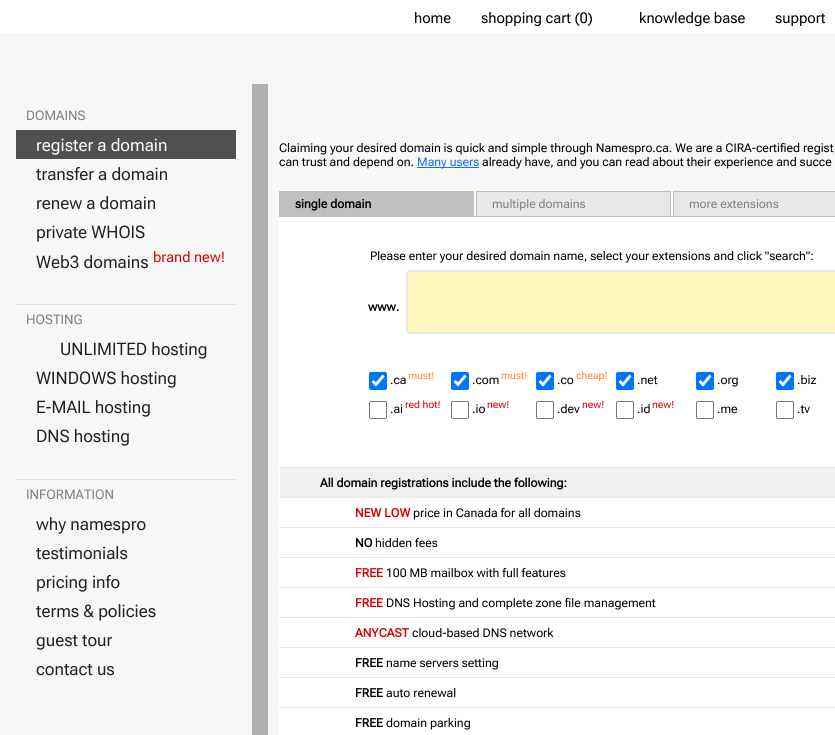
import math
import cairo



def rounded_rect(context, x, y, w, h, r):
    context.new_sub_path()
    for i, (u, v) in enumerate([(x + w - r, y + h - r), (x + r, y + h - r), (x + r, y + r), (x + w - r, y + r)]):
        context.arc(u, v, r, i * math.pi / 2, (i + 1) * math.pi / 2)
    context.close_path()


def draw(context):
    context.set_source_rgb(1, 1, 1)
    context.paint()
    context.set_source_rgb(247 / 255, 247 / 255, 247 / 255)
    context.rectangle(0, 33, 835, 702)
    context.fill()
    context.set_source_rgb(80 / 255, 80 / 255, 80 / 255)
    context.rectangle(16, 130, 220, 29)
    context.fill()
    context.set_source_rgb(224 / 255, 224 / 255, 224 / 255)
    context.rectangle(16, 304, 220, 1)
    context.fill()
    context.rectangle(16, 479, 220, 1)
    context.fill()
    context.set_source_rgb(176 / 255, 176 / 255, 176 / 255)
    context.rectangle(252, 84, 16, 651)
    context.fill()
    context.set_source_rgb(21 / 255, 108 / 255, 253 / 255)
    context.rectangle(417, 167, 62, 1)
    context.fill()
    context.set_source_rgb(192 / 255, 192 / 255, 192 / 255)
    context.rectangle(279, 191, 195, 1)
    context.fill()
    context.set_source_rgb(1, 1, 1)
    context.rectangle(474, 191, 2, 1)
    context.fill()
    context.set_source_rgb(192 / 255, 192 / 255, 192 / 255)
    context.rectangle(476, 191, 195, 1)
    context.fill()
    context.rectangle(673, 191, 162, 1)
    context.fill()
    context.rectangle(279, 192, 195, 24)
    context.fill()
    context.set_source_rgb(1, 1, 1)
    context.rectangle(474, 192, 2, 24)
    context.fill()
    context.set_source_rgb(192 / 255, 192 / 255, 192 / 255)
    context.rectangle(476, 192, 1, 24)
    context.fill()
    context.rectangle(670, 192, 1, 24)
    context.fill()
    context.set_source_rgb(1, 1, 1)
    context.rectangle(671, 192, 2, 24)
    context.fill()
    context.set_source_rgb(192 / 255, 192 / 255, 192 / 255)
    context.rectangle(673, 192, 1, 24)
    context.fill()
    context.set_source_rgb(232 / 255, 232 / 255, 232 / 255)
    context.rectangle(477, 192, 193, 24)
    context.fill()
    context.rectangle(674, 192, 161, 24)
    context.fill()
    context.set_source_rgb(192 / 255, 192 / 255, 192 / 255)
    context.rectangle(279, 216, 556, 1)
    context.fill()
    context.set_source_rgb(1, 1, 1)
    context.rectangle(279, 217, 556, 518)
    context.fill()
    context.set_source_rgb(1, 247 / 255, 189 / 255)
    rounded_rect(context, 407, 271, 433, 62, 3)
    context.fill_preserve()
    context.set_source_rgb(232 / 255, 232 / 255, 232 / 255)
    context.stroke()
    context.set_source_rgb(0, 117 / 255, 1)
    rounded_rect(context, 369, 372, 18, 18, 2)
    context.fill()
    context.new_path()
    context.move_to(372.5, 381)
    context.line_to(376, 384.5)
    context.line_to(383.5, 375.5)
    context.set_source_rgb(1, 1, 1)
    context.set_line_width(2.9)
    context.stroke()
    context.set_source_rgb(0, 117 / 255, 1)
    rounded_rect(context, 451, 372, 18, 18, 2)
    context.fill()
    context.new_path()
    context.move_to(454.5, 381)
    context.line_to(458, 384.5)
    context.line_to(465.5, 375.5)
    context.set_source_rgb(1, 1, 1)
    context.stroke()
    context.set_source_rgb(0, 117 / 255, 1)
    rounded_rect(context, 536, 372, 18, 18, 2)
    context.fill()
    context.new_path()
    context.move_to(539.5, 381)
    context.line_to(543, 384.5)
    context.line_to(550.5, 375.5)
    context.set_source_rgb(1, 1, 1)
    context.stroke()
    context.set_source_rgb(0, 117 / 255, 1)
    rounded_rect(context, 616, 372, 18, 18, 2)
    context.fill()
    context.new_path()
    context.move_to(619.5, 381)
    context.line_to(623, 384.5)
    context.line_to(630.5, 375.5)
    context.set_source_rgb(1, 1, 1)
    context.stroke()
    context.set_source_rgb(0, 117 / 255, 1)
    rounded_rect(context, 696, 372, 18, 18, 2)
    context.fill()
    context.new_path()
    context.move_to(699.5, 381)
    context.line_to(703, 384.5)
    context.line_to(710.5, 375.5)
    context.set_source_rgb(1, 1, 1)
    context.stroke()
    context.set_source_rgb(0, 117 / 255, 1)
    rounded_rect(context, 776, 372, 18, 18, 2)
    context.fill()
    context.new_path()
    context.move_to(779.5, 381)
    context.line_to(783, 384.5)
    context.line_to(790.5, 375.5)
    context.set_source_rgb(1, 1, 1)
    context.stroke()
    rounded_rect(context, 369.5, 401.5, 17, 17, 1.5)
    context.set_source_rgb(118 / 255, 118 / 255, 118 / 255)
    context.set_line_width(1)
    context.stroke()
    rounded_rect(context, 451.5, 401.5, 17, 17, 1.5)
    context.stroke()
    rounded_rect(context, 536.5, 401.5, 17, 17, 1.5)
    context.stroke()
    rounded_rect(context, 616.5, 401.5, 17, 17, 1.5)
    context.stroke()
    rounded_rect(context, 696.5, 401.5, 17, 17, 1.5)
    context.stroke()
    rounded_rect(context, 776.5, 401.5, 17, 17, 1.5)
    context.stroke()
    context.set_source_rgb(232 / 255, 232 / 255, 232 / 255)
    context.rectangle(279, 467, 556, 1)
    context.fill()
    context.set_source_rgb(240 / 255, 240 / 255, 240 / 255)
    context.rectangle(280, 468, 555, 29)
    context.fill()
    context.set_source_rgb(232 / 255, 232 / 255, 232 / 255)
    context.rectangle(279, 497, 556, 1)
    context.fill()
    context.rectangle(279, 527, 556, 1)
    context.fill()
    context.rectangle(279, 557, 556, 1)
    context.fill()
    context.rectangle(279, 587, 556, 1)
    context.fill()
    context.rectangle(279, 617, 556, 1)
    context.fill()
    context.rectangle(279, 647, 556, 1)
    context.fill()
    context.rectangle(279, 677, 556, 1)
    context.fill()
    context.rectangle(279, 707, 556, 1)
    context.fill()
    context.select_font_face("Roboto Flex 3")
    context.set_font_size(14.75)
    context.set_source_rgb(0, 0, 0)
    context.move_to(414, 23)
    context.show_text("home")
    context.move_to(481, 23)
    context.show_text("shopping cart (0)")
    context.move_to(639, 23)
    context.show_text("knowledge base")
    context.move_to(775, 23)
    context.show_text("support")
    context.select_font_face("Roboto Flex")
    context.set_font_size(13.25)
    context.set_source_rgb(128 / 255, 128 / 255, 128 / 255)
    context.move_to(26, 120)
    context.show_text("DOMAINS")
    context.select_font_face("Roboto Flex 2")
    context.set_font_size(17.25)
    context.set_source_rgb(1, 1, 1)
    context.move_to(36, 151)
    context.show_text("register a domain")
    context.set_source_rgb(32 / 255, 32 / 255, 32 / 255)
    context.move_to(36, 180)
    context.show_text("transfer a domain")
    context.move_to(36, 209)
    context.show_text("renew a domain")
    context.move_to(36, 238)
    context.show_text("private WHOIS")
    context.move_to(36, 268)
    context.show_text("Web3 domains")
    context.select_font_face("Roboto Flex 3")
    context.set_font_size(14.5)
    context.set_source_rgb(222 / 255, 0, 0)
    context.move_to(153, 262)
    context.show_text("brand new!")
    context.select_font_face("Roboto Flex")
    context.set_font_size(13.25)
    context.set_source_rgb(128 / 255, 128 / 255, 128 / 255)
    context.move_to(26, 324)
    context.show_text("HOSTING")
    context.select_font_face("Roboto Flex 2")
    context.set_font_size(17.25)
    context.set_source_rgb(32 / 255, 32 / 255, 32 / 255)
    context.move_to(60, 355)
    context.show_text("UNLIMITED hosting")
    context.move_to(36, 384)
    context.show_text("WINDOWS hosting")
    context.move_to(36, 413)
    context.show_text("E-MAIL hosting")
    context.move_to(36, 442)
    context.show_text("DNS hosting")
    context.select_font_face("Roboto Flex")
    context.set_font_size(13.25)
    context.set_source_rgb(128 / 255, 128 / 255, 128 / 255)
    context.move_to(26, 499)
    context.show_text("INFORMATION")
    context.select_font_face("Roboto Flex 2")
    context.set_font_size(17.25)
    context.set_source_rgb(32 / 255, 32 / 255, 32 / 255)
    context.move_to(36, 530)
    context.show_text("why namespro")
    context.move_to(36, 559)
    context.show_text("testimonials")
    context.move_to(36, 588)
    context.show_text("pricing info")
    context.move_to(36, 617)
    context.show_text("terms & policies")
    context.move_to(36, 646)
    context.show_text("guest tour")
    context.move_to(36, 675)
    context.show_text("contact us")
    context.select_font_face("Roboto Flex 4")
    context.set_font_size(12)
    context.set_source_rgb(0, 0, 0)
    context.move_to(279, 152)
    context.show_text("Claiming your desired domain is quick and simple through Namespro.ca. We are a CIRA-certified regist")
    context.move_to(279, 166)
    context.show_text("can trust and depend on.")
    context.set_source_rgb(21 / 255, 108 / 255, 253 / 255)
    context.move_to(417, 166)
    context.show_text("Many users")
    context.set_source_rgb(0, 0, 0)
    context.move_to(482, 166)
    context.show_text("already have, and you can read about their experience and succe")
    context.select_font_face("Roboto Flex", cairo.FontSlant.NORMAL, cairo.FontWeight.BOLD)
    context.move_to(295, 208)
    context.show_text("single domain")
    context.select_font_face("Roboto Flex 4")
    context.set_source_rgb(128 / 255, 128 / 255, 128 / 255)
    context.move_to(492, 208)
    context.show_text("multiple domains")
    context.move_to(689, 208)
    context.show_text("more extensions")
    context.set_source_rgb(0, 0, 0)
    context.move_to(370, 260)
    context.show_text("Please enter your desired domain name, select your extensions and click \"search\":")
    context.select_font_face("Roboto Flex", cairo.FontSlant.NORMAL, cairo.FontWeight.BOLD)
    context.move_to(368, 311)
    context.show_text("www.")
    context.select_font_face("Roboto Flex 4")
    context.move_to(390, 384)
    context.show_text(".ca")
    context.select_font_face("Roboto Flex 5")
    context.set_font_size(10)
    context.set_source_rgb(1, 136 / 255, 39 / 255)
    context.move_to(408, 379)
    context.show_text("must!")
    context.select_font_face("Roboto Flex 4")
    context.set_font_size(12)
    context.set_source_rgb(0, 0, 0)
    context.move_to(472, 384)
    context.show_text(".com")
    context.select_font_face("Roboto Flex 5")
    context.set_font_size(10)
    context.set_source_rgb(1, 136 / 255, 39 / 255)
    context.move_to(501, 379)
    context.show_text("must!")
    context.select_font_face("Roboto Flex 4")
    context.set_font_size(12)
    context.set_source_rgb(0, 0, 0)
    context.move_to(557, 384)
    context.show_text(".co")
    context.select_font_face("Roboto Flex 5")
    context.set_font_size(10)
    context.set_source_rgb(1, 136 / 255, 39 / 255)
    context.move_to(576, 379)
    context.show_text("cheap!")
    context.select_font_face("Roboto Flex 4")
    context.set_font_size(12)
    context.set_source_rgb(0, 0, 0)
    context.move_to(637, 384)
    context.show_text(".net")
    context.move_to(717, 384)
    context.show_text(".org")
    context.move_to(797, 384)
    context.show_text(".biz")
    context.move_to(390, 413)
    context.show_text(".ai")
    context.select_font_face("Roboto Flex 5")
    context.set_font_size(10)
    context.set_source_rgb(222 / 255, 0, 0)
    context.move_to(405, 408)
    context.show_text("red hot!")
    context.select_font_face("Roboto Flex 4")
    context.set_font_size(12)
    context.set_source_rgb(0, 0, 0)
    context.move_to(472, 413)
    context.show_text(".io")
    context.select_font_face("Roboto Flex 5")
    context.set_font_size(10)
    context.set_source_rgb(222 / 255, 0, 0)
    context.move_to(487, 408)
    context.show_text("new!")
    context.select_font_face("Roboto Flex 4")
    context.set_font_size(12)
    context.set_source_rgb(0, 0, 0)
    context.move_to(557, 413)
    context.show_text(".dev")
    context.select_font_face("Roboto Flex 5")
    context.set_font_size(10)
    context.set_source_rgb(222 / 255, 0, 0)
    context.move_to(582, 408)
    context.show_text("new!")
    context.select_font_face("Roboto Flex 4")
    context.set_font_size(12)
    context.set_source_rgb(0, 0, 0)
    context.move_to(637, 413)
    context.show_text(".id")
    context.select_font_face("Roboto Flex 5")
    context.set_font_size(10)
    context.set_source_rgb(222 / 255, 0, 0)
    context.move_to(652, 408)
    context.show_text("new!")
    context.select_font_face("Roboto Flex 4")
    context.set_font_size(12)
    context.set_source_rgb(0, 0, 0)
    context.move_to(717, 413)
    context.show_text(".me")
    context.move_to(797, 413)
    context.show_text(".tv")
    context.select_font_face("Roboto Flex", cairo.FontSlant.NORMAL, cairo.FontWeight.BOLD)
    context.move_to(320, 487)
    context.show_text("All domain registrations include the following:")
    context.set_source_rgb(222 / 255, 0, 0)
    context.move_to(355, 517)
    context.show_text("NEW LOW")
    context.select_font_face("Roboto Flex 4")
    context.set_source_rgb(0, 0, 0)
    context.move_to(413, 517)
    context.show_text("price in Canada for all domains")
    context.select_font_face("Roboto Flex", cairo.FontSlant.NORMAL, cairo.FontWeight.BOLD)
    context.move_to(355, 547)
    context.show_text("NO")
    context.select_font_face("Roboto Flex 4")
    context.move_to(375, 547)
    context.show_text("hidden fees")
    context.select_font_face("Roboto Flex", cairo.FontSlant.NORMAL, cairo.FontWeight.BOLD)
    context.set_source_rgb(222 / 255, 0, 0)
    context.move_to(355, 577)
    context.show_text("FREE")
    context.select_font_face("Roboto Flex 4")
    context.set_source_rgb(0, 0, 0)
    context.move_to(386, 577)
    context.show_text("100 MB mailbox with full features")
    context.select_font_face("Roboto Flex", cairo.FontSlant.NORMAL, cairo.FontWeight.BOLD)
    context.set_source_rgb(222 / 255, 0, 0)
    context.move_to(355, 607)
    context.show_text("FREE")
    context.select_font_face("Roboto Flex 4")
    context.set_source_rgb(0, 0, 0)
    context.move_to(386, 607)
    context.show_text("DNS Hosting and complete zone file management")
    context.select_font_face("Roboto Flex", cairo.FontSlant.NORMAL, cairo.FontWeight.BOLD)
    context.set_source_rgb(222 / 255, 0, 0)
    context.move_to(355, 637)
    context.show_text("ANYCAST")
    context.select_font_face("Roboto Flex 4")
    context.set_source_rgb(0, 0, 0)
    context.move_to(412, 637)
    context.show_text("cloud-based DNS network")
    context.select_font_face("Roboto Flex", cairo.FontSlant.NORMAL, cairo.FontWeight.BOLD)
    context.move_to(355, 667)
    context.show_text("FREE")
    context.select_font_face("Roboto Flex 4")
    context.move_to(386, 667)
    context.show_text("name servers setting")
    context.select_font_face("Roboto Flex", cairo.FontSlant.NORMAL, cairo.FontWeight.BOLD)
    context.move_to(355, 697)
    context.show_text("FREE")
    context.select_font_face("Roboto Flex 4")
    context.move_to(386, 697)
    context.show_text("auto renewal")
    context.select_font_face("Roboto Flex", cairo.FontSlant.NORMAL, cairo.FontWeight.BOLD)
    context.move_to(355, 727)
    context.show_text("FREE")
    context.select_font_face("Roboto Flex 4")
    context.move_to(386, 727)
    context.show_text("domain parking")


surface = cairo.ImageSurface(cairo.Format.RGB24, 835, 735)
context = cairo.Context(surface)
options = cairo.FontOptions()
options.set_hint_metrics(cairo.HintMetrics.OFF)
options.set_hint_style(cairo.HintStyle.NONE)
context.set_font_options(options)
context.set_miter_limit(4)
draw(context)
surface.write_to_png("out.png")
